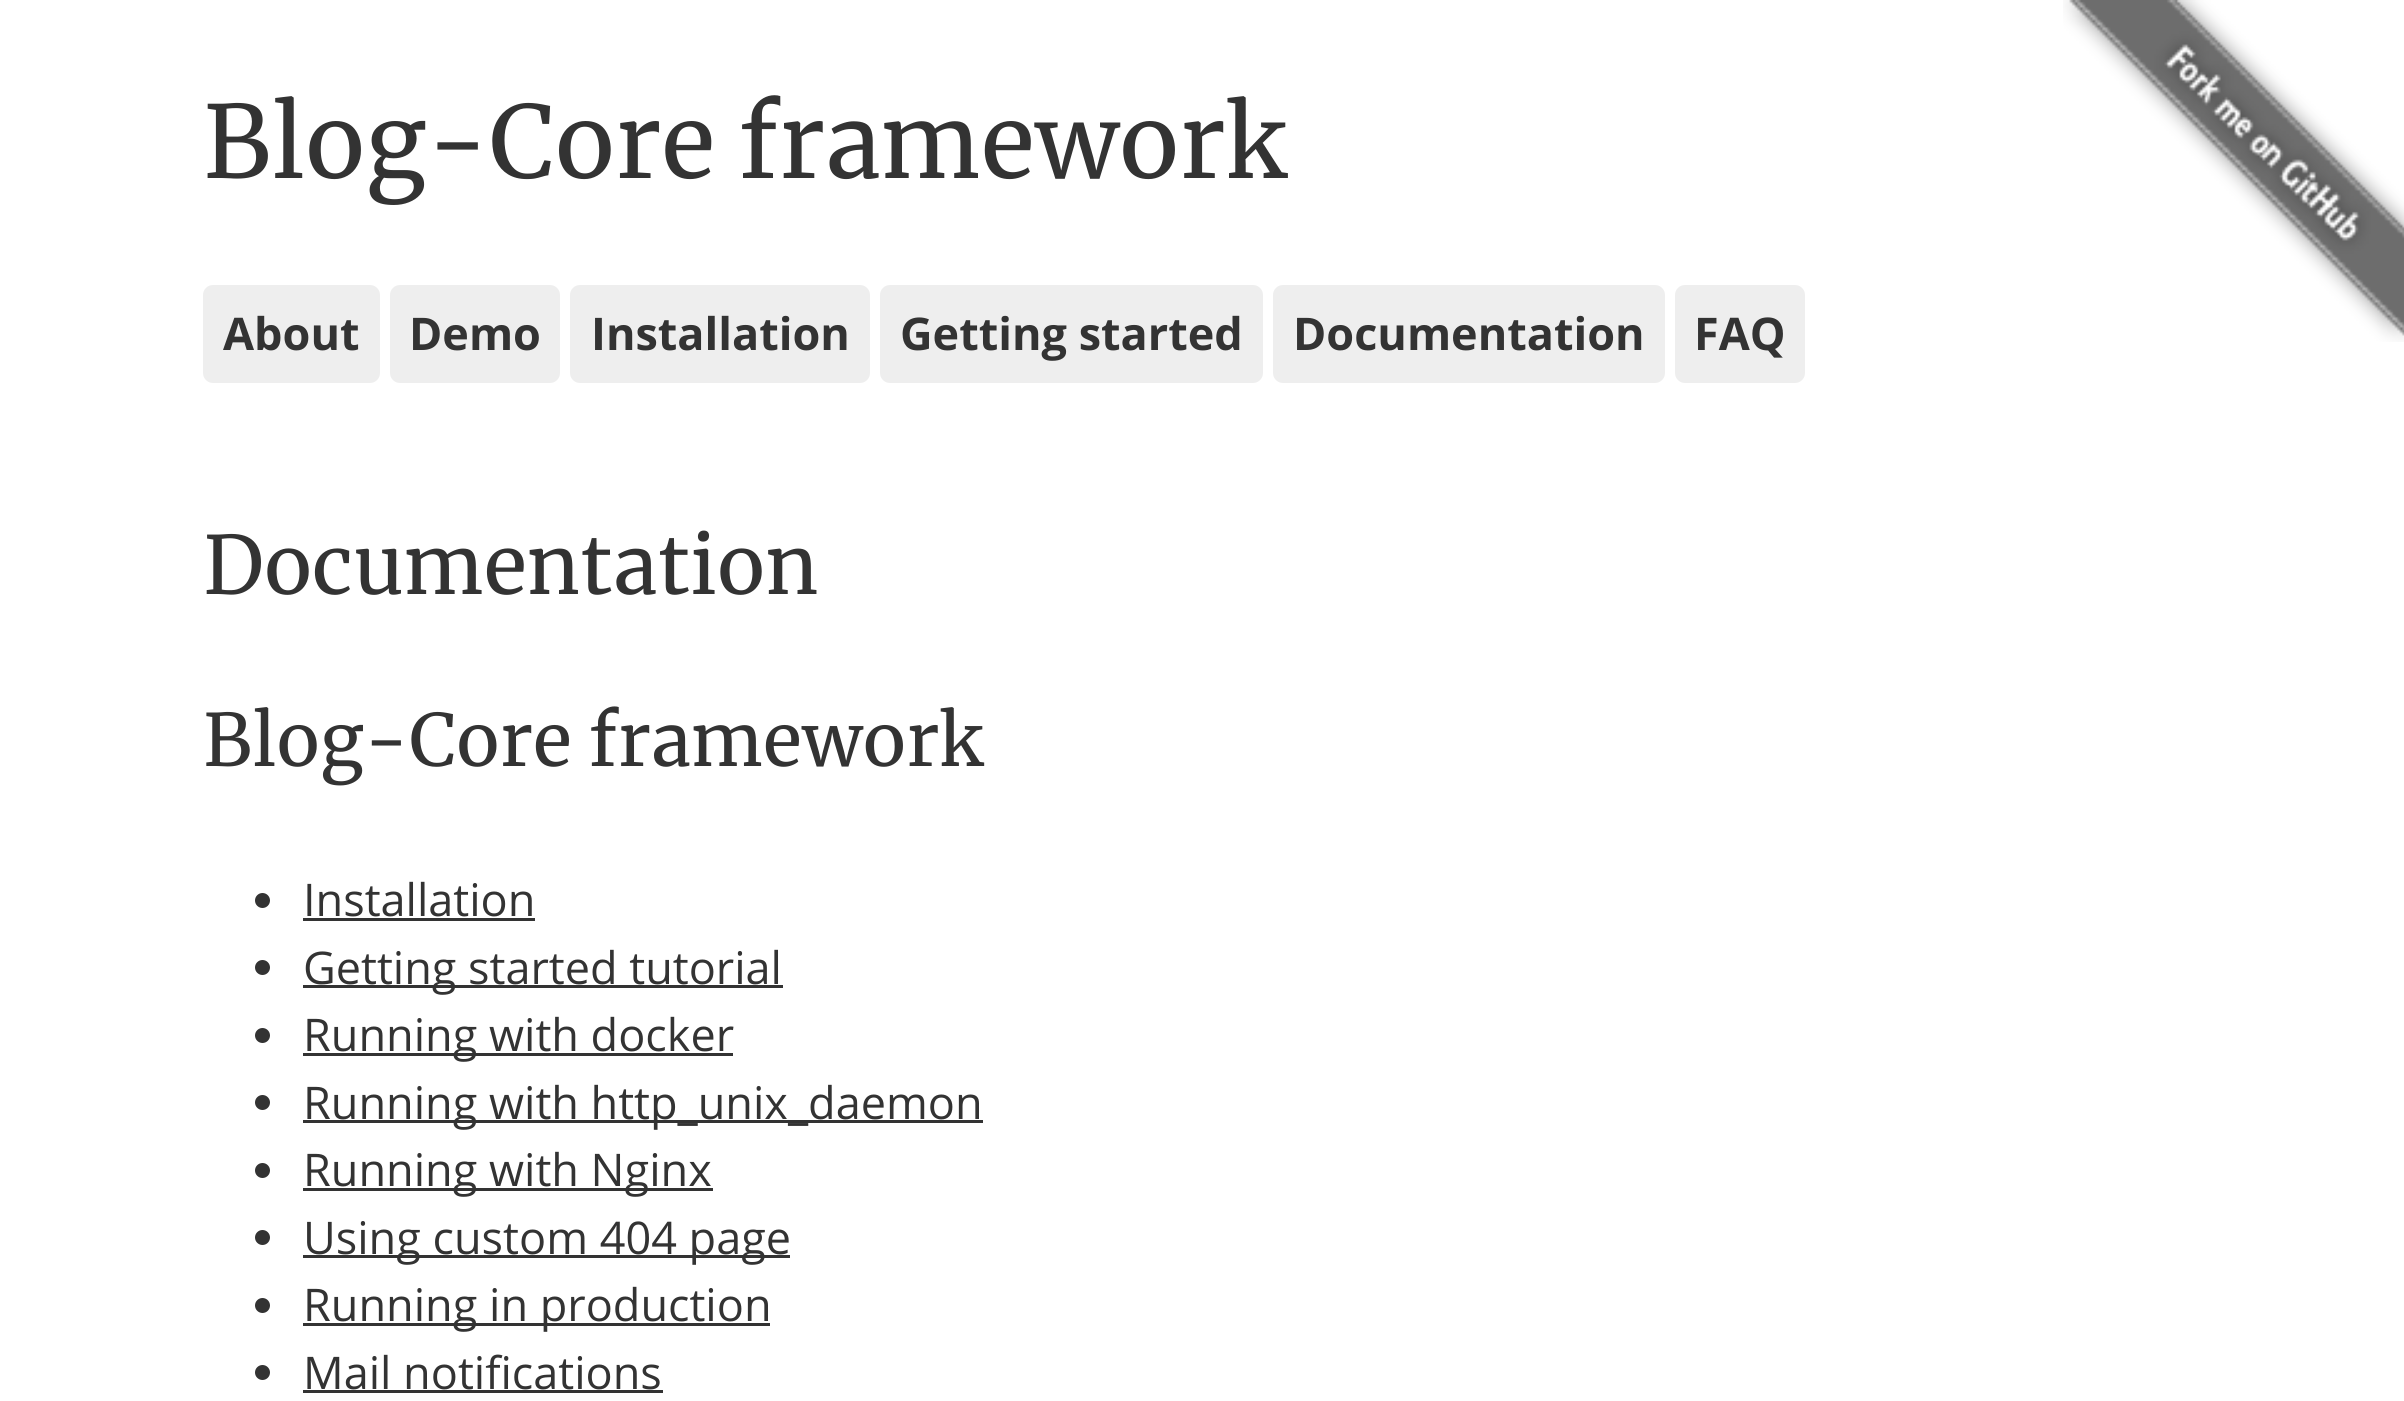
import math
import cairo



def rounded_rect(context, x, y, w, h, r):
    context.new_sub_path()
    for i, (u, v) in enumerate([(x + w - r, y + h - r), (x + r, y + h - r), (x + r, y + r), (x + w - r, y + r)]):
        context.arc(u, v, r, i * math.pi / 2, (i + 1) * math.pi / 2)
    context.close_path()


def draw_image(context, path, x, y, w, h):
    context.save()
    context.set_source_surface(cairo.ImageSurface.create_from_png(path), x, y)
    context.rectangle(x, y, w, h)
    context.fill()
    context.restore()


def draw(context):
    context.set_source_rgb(1, 1, 1)
    context.paint()
    context.set_source_rgb(238 / 255, 238 / 255, 238 / 255)
    rounded_rect(context, 203, 285, 177, 98, 10)
    context.fill()
    rounded_rect(context, 390, 285, 170, 98, 10)
    context.fill()
    rounded_rect(context, 570, 285, 300, 98, 10)
    context.fill()
    rounded_rect(context, 880, 285, 383, 98, 10)
    context.fill()
    rounded_rect(context, 1273, 285, 392, 98, 10)
    context.fill()
    rounded_rect(context, 1675, 285, 130, 98, 10)
    context.fill()
    draw_image(context, "images/1.png", 2063, 0, 341, 342)
    context.set_source_rgb(51 / 255, 51 / 255, 51 / 255)
    context.arc(262.5, 900.5, 7.5, 0, 2 * math.pi)
    context.fill()
    context.rectangle(303, 918, 232, 3)
    context.fill()
    context.arc(262.5, 967.5, 7.5, 0, 2 * math.pi)
    context.fill()
    context.rectangle(303, 985, 480, 3)
    context.fill()
    context.arc(262.5, 1035.5, 7.5, 0, 2 * math.pi)
    context.fill()
    context.rectangle(303, 1053, 430, 3)
    context.fill()
    context.arc(262.5, 1102.5, 7.5, 0, 2 * math.pi)
    context.fill()
    context.rectangle(303, 1120, 680, 3)
    context.fill()
    context.arc(262.5, 1170.5, 7.5, 0, 2 * math.pi)
    context.fill()
    context.rectangle(303, 1188, 410, 3)
    context.fill()
    context.arc(262.5, 1237.5, 7.5, 0, 2 * math.pi)
    context.fill()
    context.rectangle(303, 1255, 487, 3)
    context.fill()
    context.arc(262.5, 1305.5, 7.5, 0, 2 * math.pi)
    context.fill()
    context.rectangle(303, 1323, 467, 3)
    context.fill()
    context.arc(262.5, 1372.5, 7.5, 0, 2 * math.pi)
    context.fill()
    context.rectangle(303, 1390, 360, 3)
    context.fill()
    context.select_font_face("Merriweather")
    context.set_font_size(100)
    context.move_to(203, 178)
    context.show_text("Blog-Core framework")
    context.select_font_face("Open Sans", cairo.FontSlant.NORMAL, cairo.FontWeight.BOLD)
    context.set_font_size(45)
    context.move_to(223, 350)
    context.show_text("About")
    context.move_to(409, 350)
    context.show_text("Demo")
    context.move_to(591, 350)
    context.show_text("Installation")
    context.move_to(900, 350)
    context.show_text("Getting started")
    context.move_to(1293, 350)
    context.show_text("Documentation")
    context.move_to(1694, 350)
    context.show_text("FAQ")
    context.select_font_face("Merriweather")
    context.set_font_size(80)
    context.move_to(203, 594)
    context.show_text("Documentation")
    context.set_font_size(72)
    context.move_to(203, 766)
    context.show_text("Blog-Core framework")
    context.select_font_face("Open Sans")
    context.set_font_size(45)
    context.move_to(303, 916)
    context.show_text("Installation")
    context.move_to(303, 984)
    context.show_text("Getting started tutorial")
    context.move_to(303, 1051)
    context.show_text("Running with docker")
    context.move_to(303, 1119)
    context.show_text("Running with http_unix_daemon")
    context.move_to(303, 1186)
    context.show_text("Running with Nginx")
    context.move_to(303, 1254)
    context.show_text("Using custom 404 page")
    context.move_to(303, 1321)
    context.show_text("Running in production")
    context.move_to(303, 1389)
    context.show_text("Mail notifications")


surface = cairo.ImageSurface(cairo.Format.RGB24, 2404, 1401)
context = cairo.Context(surface)
options = cairo.FontOptions()
options.set_hint_metrics(cairo.HintMetrics.OFF)
options.set_hint_style(cairo.HintStyle.NONE)
context.set_font_options(options)
context.set_miter_limit(4)
draw(context)
surface.write_to_png("out.png")
